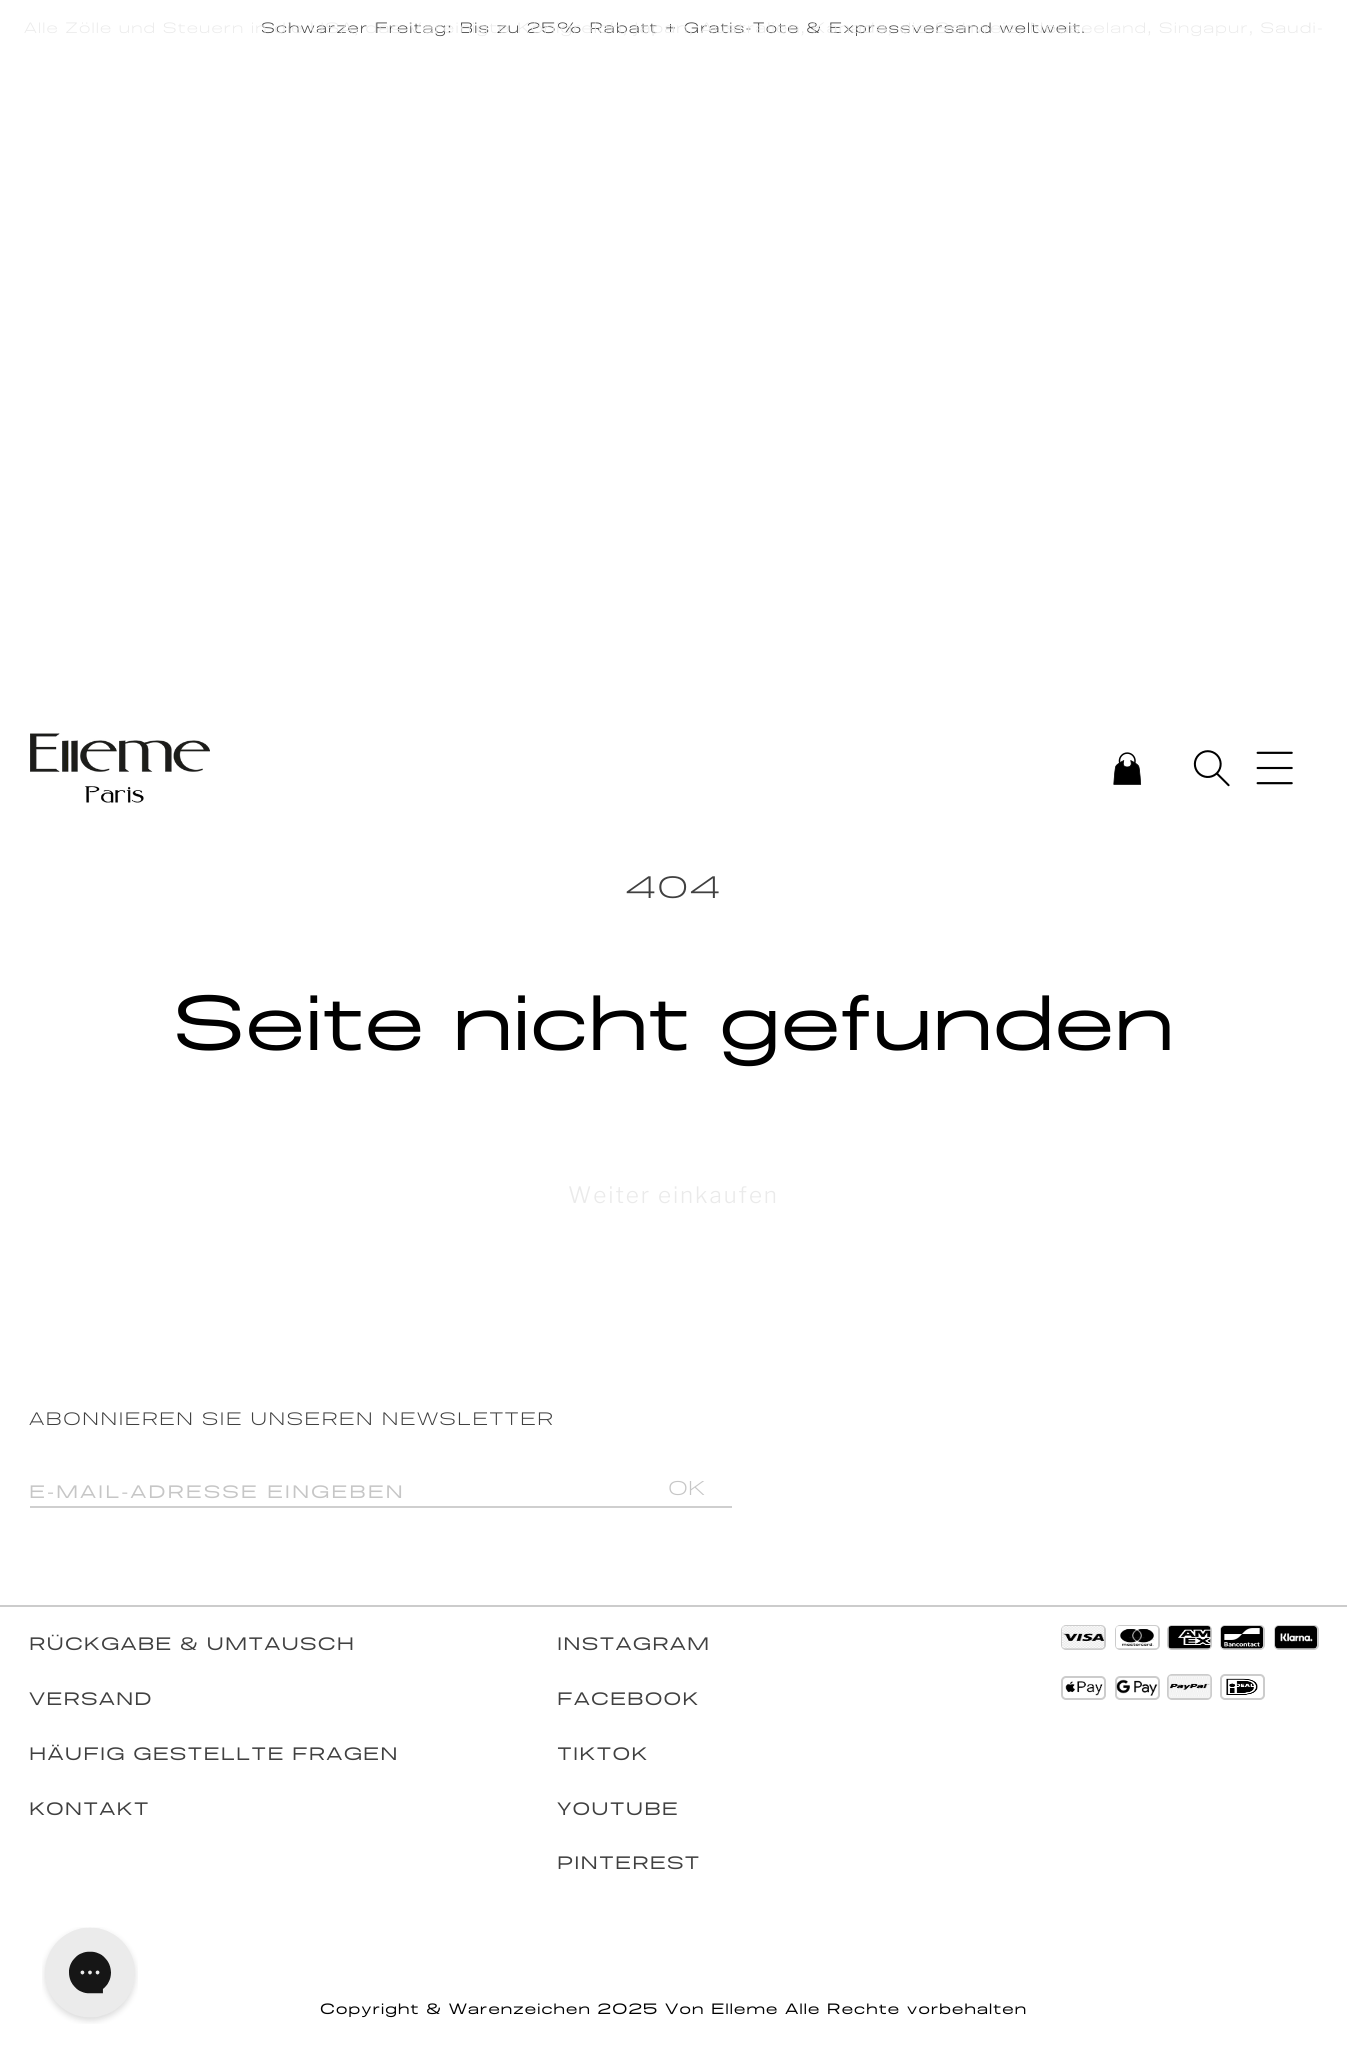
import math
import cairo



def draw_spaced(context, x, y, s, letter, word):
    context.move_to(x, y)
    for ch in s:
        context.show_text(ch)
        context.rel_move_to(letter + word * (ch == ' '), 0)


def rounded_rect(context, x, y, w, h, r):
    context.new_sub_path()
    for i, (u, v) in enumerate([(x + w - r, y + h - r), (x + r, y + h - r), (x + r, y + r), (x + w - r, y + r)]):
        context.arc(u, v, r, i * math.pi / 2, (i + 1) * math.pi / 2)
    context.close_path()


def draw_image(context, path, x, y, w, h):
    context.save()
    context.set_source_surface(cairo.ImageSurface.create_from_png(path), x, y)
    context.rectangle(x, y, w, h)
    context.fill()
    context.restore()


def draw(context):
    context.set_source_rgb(1, 1, 1)
    context.paint()
    draw_image(context, "images/1.png", 30, 733, 180, 70)
    draw_image(context, "images/2.png", 1113, 752, 29, 33)
    draw_image(context, "images/3.png", 1193, 750, 37, 37)
    draw_image(context, "images/4.png", 1256, 751, 37, 34)
    context.set_source_rgb(207 / 255, 207 / 255, 207 / 255)
    context.rectangle(30, 1506, 702, 2)
    context.fill()
    context.set_source_rgb(204 / 255, 204 / 255, 204 / 255)
    context.rectangle(0, 1605, 1347, 2)
    context.fill()
    rounded_rect(context, 1062, 1626, 43, 23, 4)
    context.stroke()
    rounded_rect(context, 1116, 1626, 43, 23, 4)
    context.stroke()
    rounded_rect(context, 1168, 1626, 43, 23, 4)
    context.stroke()
    rounded_rect(context, 1221, 1626, 43, 23, 4)
    context.stroke()
    rounded_rect(context, 1275, 1626, 43, 23, 4)
    context.stroke()
    draw_image(context, "images/5.png", 1062, 1626, 42, 23)
    draw_image(context, "images/6.png", 1116, 1626, 42, 23)
    draw_image(context, "images/7.png", 1168, 1626, 43, 23)
    draw_image(context, "images/8.png", 1221, 1626, 42, 23)
    draw_image(context, "images/9.png", 1275, 1626, 42, 23)
    rounded_rect(context, 1168, 1675, 43, 24, 4)
    context.stroke()
    rounded_rect(context, 1221, 1675, 43, 24, 4)
    context.stroke()
    rounded_rect(context, 1062, 1677, 43, 22, 4)
    context.stroke()
    rounded_rect(context, 1116, 1677, 43, 22, 4)
    context.stroke()
    draw_image(context, "images/10.png", 1168, 1675, 43, 23)
    draw_image(context, "images/11.png", 1226, 1678, 32, 17)
    draw_image(context, "images/12.png", 1065, 1681, 38, 15)
    draw_image(context, "images/13.png", 1116, 1679, 42, 17)
    draw_image(context, "images/14.png", 42, 1927, 96, 97)
    context.select_font_face("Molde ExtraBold")
    context.set_font_size(15)
    context.set_source_rgb(64 / 255, 64 / 255, 64 / 255)
    draw_spaced(context, 261, 33, "Schwarzer Freitag: Bis zu 25% Rabatt + Gratis-Tote & Expressversand weltweit.", 1.17, 0)
    context.set_source_rgb(234 / 255, 234 / 255, 234 / 255)
    draw_spaced(context, 24, 33, "Alle Zölle und Steuern in die USA, das Vereinigte Königreich, Japan, Australien, Kanada, die Schweiz, Neuseeland, Singapur, Saudi-", 1.17, 0)
    context.set_font_size(31)
    context.set_source_rgb(64 / 255, 64 / 255, 64 / 255)
    draw_spaced(context, 625, 898, "404", 1.17, 0)
    context.select_font_face("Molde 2 ExtraBold")
    context.set_font_size(78)
    context.set_source_rgb(0, 0, 0)
    draw_spaced(context, 173, 1050, "Seite nicht gefunden", 1.17, 0)
    context.select_font_face("Libre Franklin Light")
    context.set_font_size(22.5)
    context.set_source_rgb(234 / 255, 234 / 255, 234 / 255)
    draw_spaced(context, 568, 1203, "Weiter einkaufen", 1.95, 0)
    context.select_font_face("Molde ExtraBold")
    context.set_font_size(18)
    context.set_source_rgb(64 / 255, 64 / 255, 64 / 255)
    draw_spaced(context, 29, 1425, "ABONNIEREN SIE UNSEREN NEWSLETTER", 1.17, 0)
    context.select_font_face("Molde 2 ExtraBold")
    context.set_source_rgb(198 / 255, 198 / 255, 198 / 255)
    draw_spaced(context, 29, 1498, "E-MAIL-ADRESSE EINGEBEN", 1.95, 0)
    context.select_font_face("Molde ExtraBold")
    context.set_font_size(20)
    context.move_to(668, 1495)
    context.show_text("OK")
    context.select_font_face("Molde 2 ExtraBold")
    context.set_font_size(18)
    context.set_source_rgb(64 / 255, 64 / 255, 64 / 255)
    draw_spaced(context, 29, 1650, "RÜCKGABE & UMTAUSCH", 1.17, 0)
    draw_spaced(context, 29, 1705, "VERSAND", 1.17, 0)
    draw_spaced(context, 29, 1760, "HÄUFIG GESTELLTE FRAGEN", 1.17, 0)
    draw_spaced(context, 29, 1815, "KONTAKT", 1.17, 0)
    draw_spaced(context, 557, 1650, "INSTAGRAM", 1.17, 0)
    draw_spaced(context, 557, 1705, "FACEBOOK", 1.17, 0)
    draw_spaced(context, 557, 1760, "TIKTOK", 1.17, 0)
    draw_spaced(context, 557, 1815, "YOUTUBE", 1.17, 0)
    draw_spaced(context, 557, 1869, "PINTEREST", 1.17, 0)
    context.set_font_size(15)
    context.set_source_rgb(0, 0, 0)
    draw_spaced(context, 320, 2014, "Copyright & Warenzeichen 2025 Von Elleme Alle Rechte vorbehalten", 1.17, 0)


surface = cairo.ImageSurface(cairo.Format.RGB24, 1347, 2057)
context = cairo.Context(surface)
options = cairo.FontOptions()
options.set_hint_metrics(cairo.HintMetrics.OFF)
options.set_hint_style(cairo.HintStyle.NONE)
context.set_font_options(options)
context.set_miter_limit(4)
draw(context)
surface.write_to_png("out.png")
